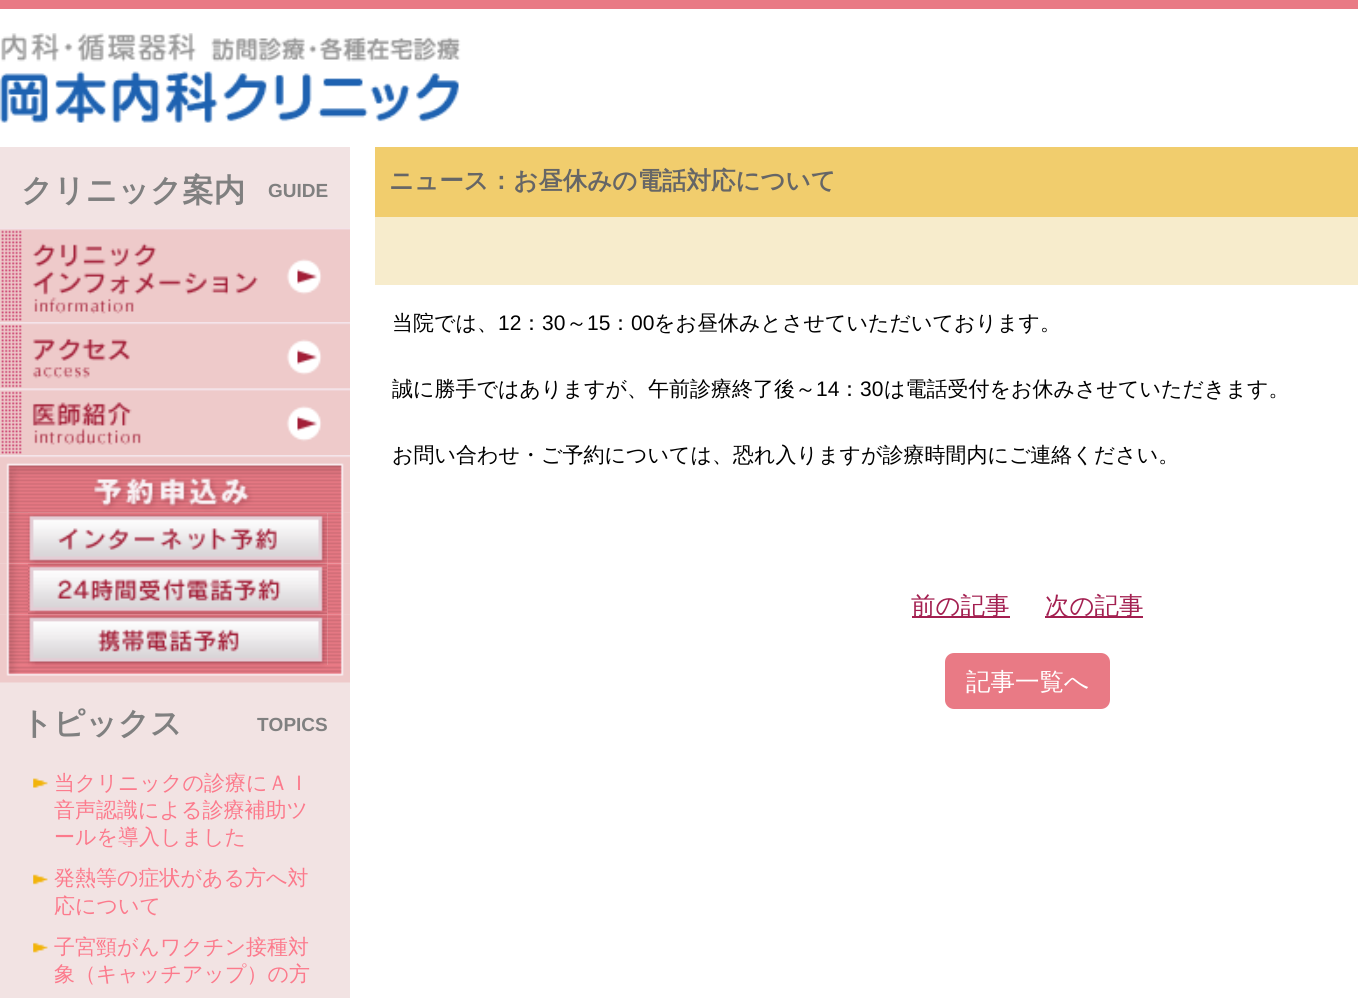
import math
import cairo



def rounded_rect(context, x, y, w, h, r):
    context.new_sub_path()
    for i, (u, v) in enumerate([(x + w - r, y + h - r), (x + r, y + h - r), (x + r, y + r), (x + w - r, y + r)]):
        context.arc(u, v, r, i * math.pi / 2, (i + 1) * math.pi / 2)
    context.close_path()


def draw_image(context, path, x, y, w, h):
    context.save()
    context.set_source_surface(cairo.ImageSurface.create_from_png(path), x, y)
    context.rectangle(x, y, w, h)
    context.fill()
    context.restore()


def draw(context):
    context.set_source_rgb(1, 1, 1)
    context.paint()
    context.set_source_rgb(233 / 255, 122 / 255, 133 / 255)
    context.rectangle(0, 0, 1358, 9)
    context.fill()
    draw_image(context, "images/1.png", 0, 33, 461, 90)
    context.set_source_rgb(242 / 255, 227 / 255, 227 / 255)
    context.rectangle(0, 147, 350, 851)
    context.fill()
    draw_image(context, "images/2.png", 0, 228, 350, 94)
    draw_image(context, "images/3.png", 0, 322, 350, 67)
    draw_image(context, "images/4.png", 0, 388, 350, 67)
    draw_image(context, "images/6.png", 0, 512, 28, 52)
    draw_image(context, "images/8.png", 327, 512, 23, 52)
    draw_image(context, "images/5.png", 0, 455, 350, 58)
    draw_image(context, "images/11.png", 327, 563, 23, 52)
    draw_image(context, "images/7.png", 28, 512, 300, 52)
    draw_image(context, "images/9.png", 0, 563, 28, 52)
    draw_image(context, "images/14.png", 327, 614, 23, 51)
    draw_image(context, "images/10.png", 28, 563, 300, 52)
    draw_image(context, "images/12.png", 0, 614, 28, 51)
    draw_image(context, "images/13.png", 28, 614, 300, 51)
    draw_image(context, "images/15.png", 0, 665, 350, 18)
    draw_image(context, "images/16.png", 33, 778, 15, 10)
    draw_image(context, "images/17.png", 33, 874, 15, 11)
    draw_image(context, "images/18.png", 33, 942, 15, 11)
    context.set_source_rgb(241 / 255, 205 / 255, 109 / 255)
    context.rectangle(375, 147, 983, 70)
    context.fill()
    context.set_source_rgb(247 / 255, 236 / 255, 204 / 255)
    context.rectangle(375, 217, 983, 68)
    context.fill()
    context.set_source_rgb(163 / 255, 31 / 255, 80 / 255)
    context.rectangle(912, 616, 98, 2)
    context.fill()
    context.rectangle(1045, 616, 98, 2)
    context.fill()
    context.set_source_rgb(233 / 255, 122 / 255, 133 / 255)
    rounded_rect(context, 945, 653, 165, 56, 9)
    context.fill()
    context.select_font_face("WenQuanYi Zen Hei", cairo.FontSlant.NORMAL, cairo.FontWeight.BOLD)
    context.set_font_size(31.5)
    context.set_source_rgb(128 / 255, 128 / 255, 128 / 255)
    context.move_to(21, 201)
    context.show_text("クリニック案内")
    context.select_font_face("Liberation Sans", cairo.FontSlant.NORMAL, cairo.FontWeight.BOLD)
    context.set_font_size(19)
    context.move_to(268, 197)
    context.show_text("GUIDE")
    context.select_font_face("WenQuanYi Zen Hei", cairo.FontSlant.NORMAL, cairo.FontWeight.BOLD)
    context.set_font_size(31.5)
    context.move_to(21, 734)
    context.show_text("トピックス")
    context.select_font_face("Liberation Sans", cairo.FontSlant.NORMAL, cairo.FontWeight.BOLD)
    context.set_font_size(19)
    context.move_to(257, 731)
    context.show_text("TOPICS")
    context.select_font_face("WenQuanYi Zen Hei Medium")
    context.set_font_size(21)
    context.set_source_rgb(252 / 255, 122 / 255, 140 / 255)
    context.move_to(54, 790)
    context.show_text("当クリニックの診療にＡＩ")
    context.move_to(54, 817)
    context.show_text("音声認識による診療補助ツ")
    context.move_to(54, 844)
    context.show_text("ールを導入しました")
    context.move_to(54, 885)
    context.show_text("発熱等の症状がある方へ対")
    context.move_to(54, 913)
    context.show_text("応について")
    context.move_to(54, 954)
    context.show_text("子宮頸がんワクチン接種対")
    context.move_to(54, 981)
    context.show_text("象（キャッチアップ）の方")
    context.select_font_face("WenQuanYi Zen Hei", cairo.FontSlant.NORMAL, cairo.FontWeight.BOLD)
    context.set_font_size(24.5)
    context.set_source_rgb(102 / 255, 102 / 255, 102 / 255)
    context.move_to(389, 189)
    context.show_text("ニュース：お昼休みの電話対応について")
    context.select_font_face("WenQuanYi Zen Hei Medium")
    context.set_font_size(21)
    context.set_source_rgb(0, 0, 0)
    context.move_to(392, 330)
    context.show_text("当院では、")
    context.select_font_face("Liberation Sans")
    context.move_to(498, 330)
    context.show_text("12")
    context.select_font_face("WenQuanYi Zen Hei Medium")
    context.move_to(521, 330)
    context.show_text("：")
    context.select_font_face("Liberation Sans")
    context.move_to(542, 330)
    context.show_text("30")
    context.select_font_face("WenQuanYi Zen Hei Medium")
    context.move_to(566, 330)
    context.show_text("～")
    context.select_font_face("Liberation Sans")
    context.move_to(587, 330)
    context.show_text("15")
    context.select_font_face("WenQuanYi Zen Hei Medium")
    context.move_to(610, 330)
    context.show_text("：")
    context.select_font_face("Liberation Sans")
    context.move_to(631, 330)
    context.show_text("00")
    context.select_font_face("WenQuanYi Zen Hei Medium")
    context.move_to(654, 330)
    context.show_text("をお昼休みとさせていただいております。")
    context.move_to(392, 396)
    context.show_text("誠に勝手ではありますが、午前診療終了後～")
    context.select_font_face("Liberation Sans")
    context.move_to(816, 396)
    context.show_text("14")
    context.select_font_face("WenQuanYi Zen Hei Medium")
    context.move_to(839, 396)
    context.show_text("：")
    context.select_font_face("Liberation Sans")
    context.move_to(860, 396)
    context.show_text("30")
    context.select_font_face("WenQuanYi Zen Hei Medium")
    context.move_to(884, 396)
    context.show_text("は電話受付をお休みさせていただきます。")
    context.move_to(392, 462)
    context.show_text("お問い合わせ・ご予約については、恐れ入りますが診療時間内にご連絡ください。")
    context.set_font_size(24.5)
    context.set_source_rgb(163 / 255, 31 / 255, 80 / 255)
    context.move_to(911, 614)
    context.show_text("前の記事")
    context.move_to(1045, 614)
    context.show_text("次の記事")
    context.set_source_rgb(1, 1, 1)
    context.move_to(966, 690)
    context.show_text("記事一覧へ")


surface = cairo.ImageSurface(cairo.Format.RGB24, 1358, 998)
context = cairo.Context(surface)
options = cairo.FontOptions()
options.set_hint_metrics(cairo.HintMetrics.OFF)
options.set_hint_style(cairo.HintStyle.NONE)
context.set_font_options(options)
context.set_miter_limit(4)
draw(context)
surface.write_to_png("out.png")
